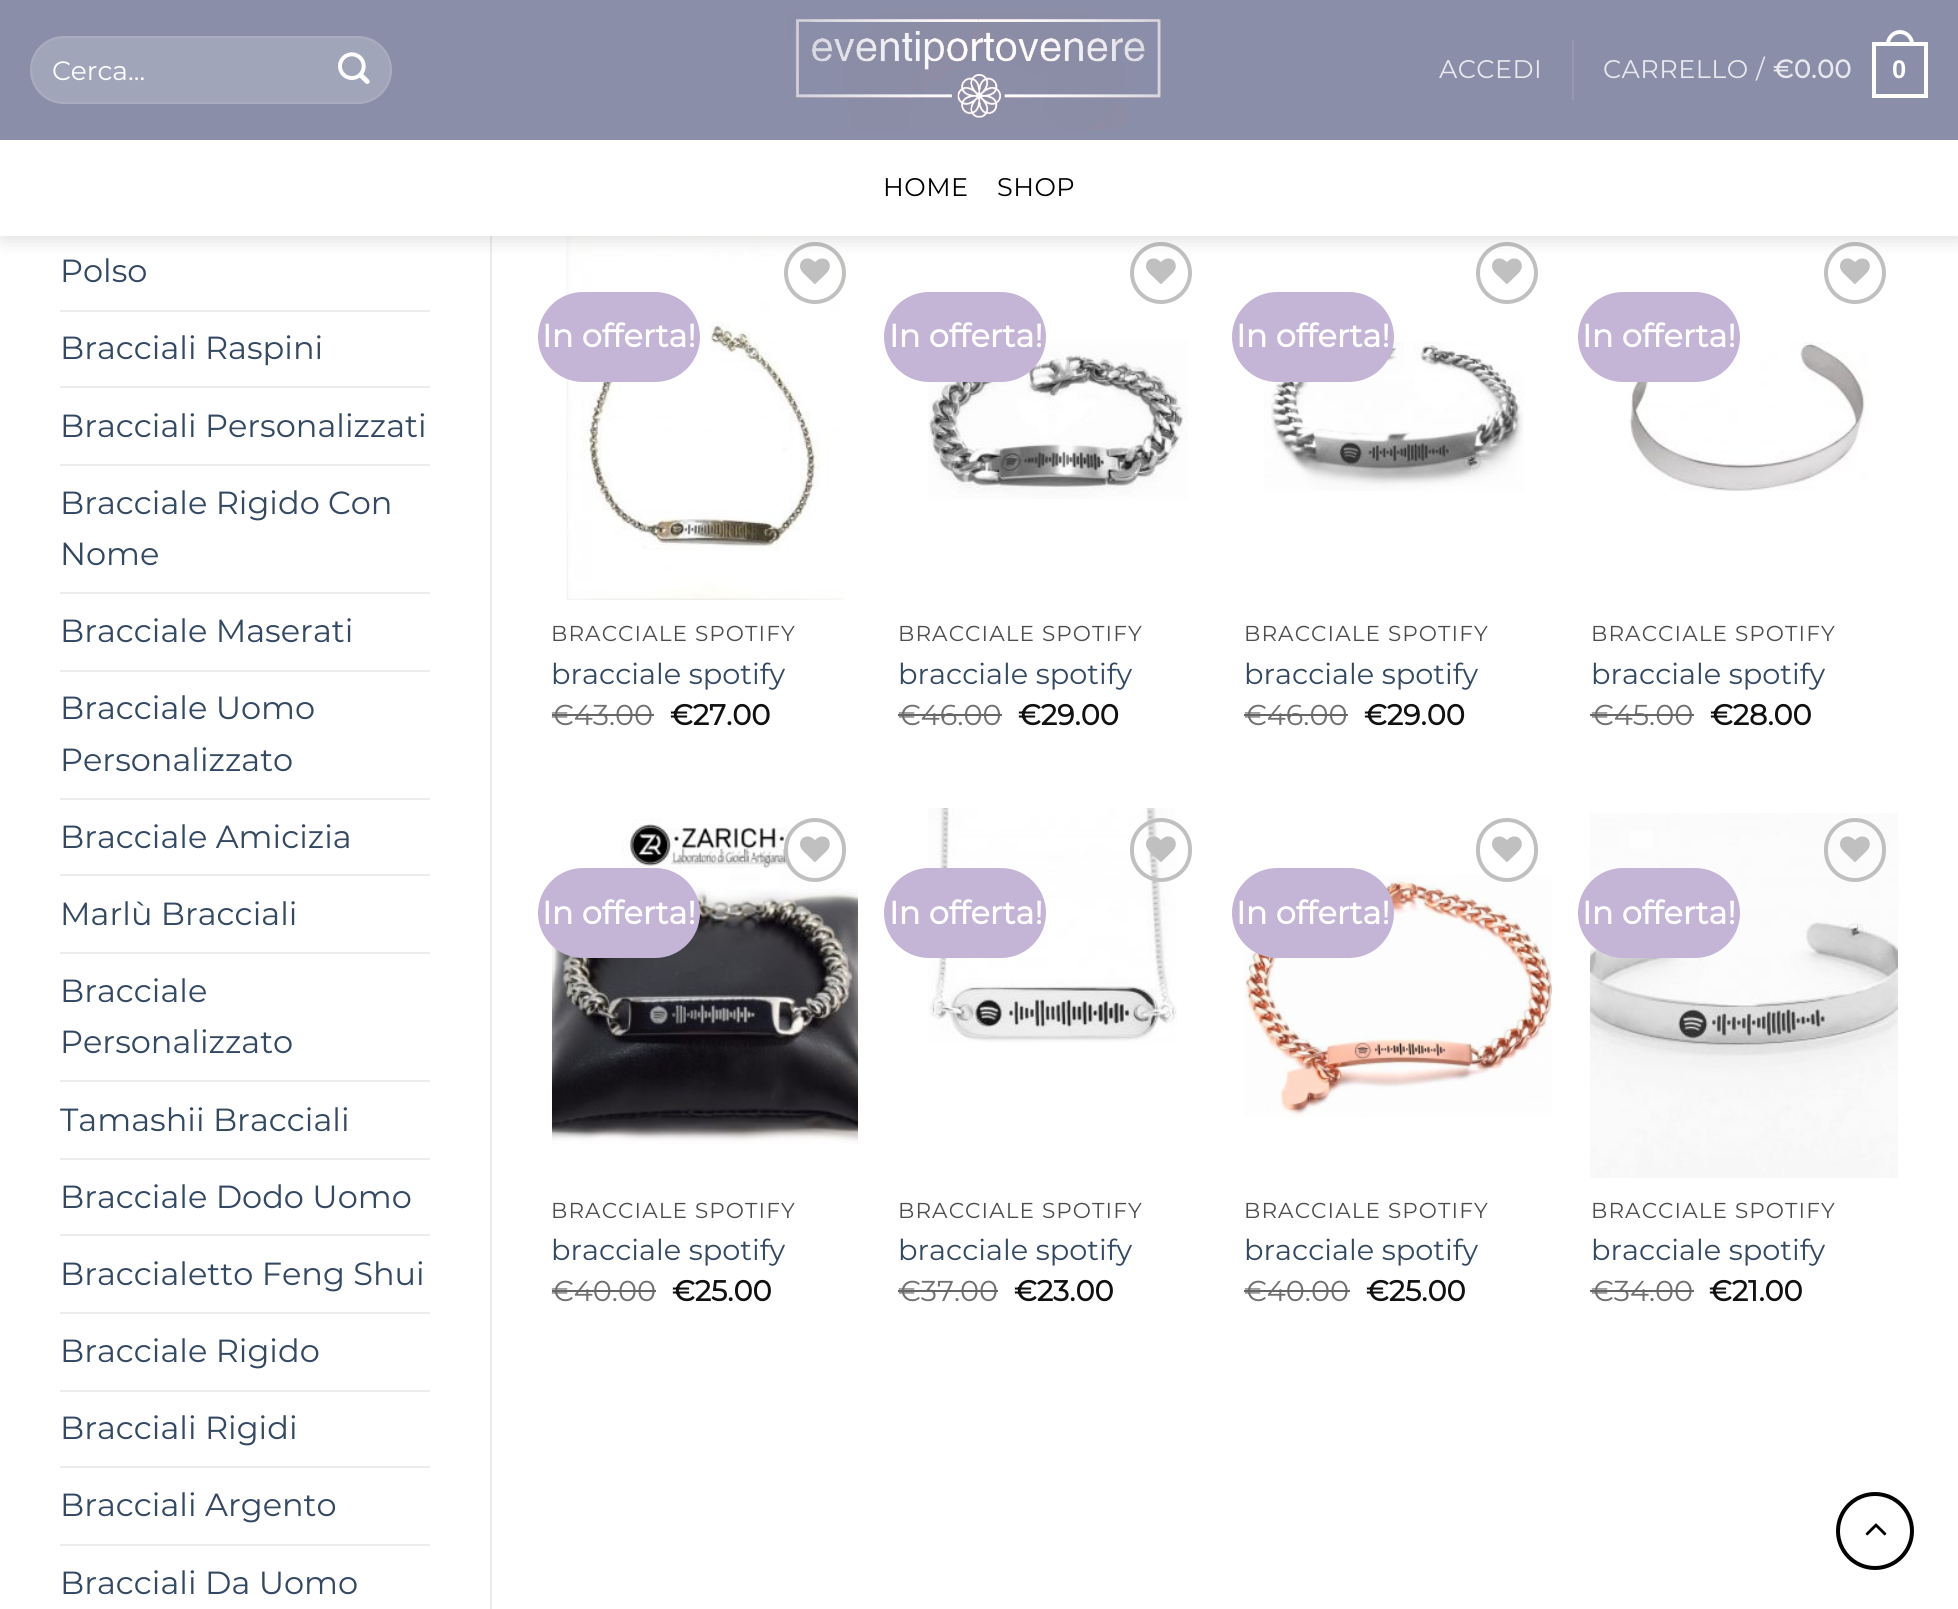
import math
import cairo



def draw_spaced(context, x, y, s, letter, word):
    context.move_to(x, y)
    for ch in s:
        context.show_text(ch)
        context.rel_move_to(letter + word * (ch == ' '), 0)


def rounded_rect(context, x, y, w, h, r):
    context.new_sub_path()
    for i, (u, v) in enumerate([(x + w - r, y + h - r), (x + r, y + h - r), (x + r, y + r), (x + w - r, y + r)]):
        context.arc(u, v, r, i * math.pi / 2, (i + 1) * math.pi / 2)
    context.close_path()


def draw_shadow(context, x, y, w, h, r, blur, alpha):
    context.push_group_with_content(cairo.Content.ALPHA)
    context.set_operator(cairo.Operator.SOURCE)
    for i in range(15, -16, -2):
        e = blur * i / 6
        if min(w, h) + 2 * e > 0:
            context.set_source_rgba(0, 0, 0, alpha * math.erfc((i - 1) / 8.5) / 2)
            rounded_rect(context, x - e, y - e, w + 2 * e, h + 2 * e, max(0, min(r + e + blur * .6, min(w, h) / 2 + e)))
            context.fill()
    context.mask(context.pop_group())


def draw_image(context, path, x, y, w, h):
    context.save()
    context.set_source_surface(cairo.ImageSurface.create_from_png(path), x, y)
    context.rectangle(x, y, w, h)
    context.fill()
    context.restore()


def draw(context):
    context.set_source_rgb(1, 1, 1)
    context.paint()
    context.set_source_rgb(236 / 255, 236 / 255, 236 / 255)
    context.rectangle(490, 236, 2, 1373)
    context.fill()
    draw_image(context, "images/3.png", 566, 236, 279, 364)
    context.arc(815, 273, 29, 0, 2 * math.pi)
    context.set_source_rgb(192 / 255, 192 / 255, 192 / 255)
    context.set_line_width(4)
    context.stroke()
    draw_image(context, "images/4.png", 800, 258, 30, 26)
    context.arc(1161, 273, 29, 0, 2 * math.pi)
    context.stroke()
    draw_image(context, "images/5.png", 1146, 258, 30, 26)
    context.arc(1507, 273, 29, 0, 2 * math.pi)
    context.stroke()
    draw_image(context, "images/5.png", 1492, 258, 30, 26)
    context.arc(1855, 273, 29, 0, 2 * math.pi)
    context.stroke()
    draw_image(context, "images/5.png", 1840, 258, 30, 26)
    context.set_source_rgb(0, 0, 0)
    draw_shadow(context, 2, 2, 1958, 236, 0, 10, 0.15)
    context.set_source_rgb(138 / 255, 142 / 255, 168 / 255)
    context.rectangle(0, 0, 1958, 140)
    context.fill()
    context.set_source_rgb(161 / 255, 165 / 255, 185 / 255)
    rounded_rect(context, 30, 36, 362, 68, 34)
    context.fill()
    rounded_rect(context, 31, 37, 360, 66, 33)
    context.set_source_rgba(1, 1, 1, 0.09)
    context.set_line_width(2)
    context.stroke()
    draw_image(context, "images/1.png", 338, 52, 32, 32)
    draw_image(context, "images/2.png", 788, 11, 373, 119)
    context.set_source_rgb(150 / 255, 153 / 255, 177 / 255)
    context.rectangle(1572, 40, 2, 60)
    context.fill()
    context.rectangle(1874, 44, 52, 52)
    context.set_source_rgb(1, 1, 1)
    context.set_line_width(4)
    context.stroke()
    context.set_fill_rule(cairo.FillRule.EVEN_ODD)
    context.new_path()
    context.move_to(1900, 30)
    context.curve_to(1907.5, 30, 1914, 36.5, 1914, 44)
    context.line_to(1914, 46)
    context.line_to(1886, 46)
    context.line_to(1886, 44)
    context.curve_to(1886, 36.5, 1892.5, 30, 1900, 30)
    context.close_path()
    context.move_to(1900, 34)
    context.curve_to(1905.5, 34, 1910, 38.5, 1910, 44)
    context.line_to(1910, 46)
    context.line_to(1890, 46)
    context.line_to(1890, 44)
    context.curve_to(1890, 38.5, 1894.5, 34, 1900, 34)
    context.close_path()
    context.fill()
    context.rectangle(0, 140, 1958, 96)
    context.fill()
    context.set_source_rgb(236 / 255, 236 / 255, 236 / 255)
    context.rectangle(60, 310, 370, 2)
    context.fill()
    context.rectangle(60, 386, 370, 2)
    context.fill()
    context.rectangle(60, 464, 370, 2)
    context.fill()
    context.rectangle(60, 592, 370, 2)
    context.fill()
    context.rectangle(60, 670, 370, 2)
    context.fill()
    context.rectangle(60, 798, 370, 2)
    context.fill()
    context.rectangle(60, 874, 370, 2)
    context.fill()
    context.rectangle(60, 952, 370, 2)
    context.fill()
    context.rectangle(60, 1080, 370, 2)
    context.fill()
    context.rectangle(60, 1158, 370, 2)
    context.fill()
    context.rectangle(60, 1234, 370, 2)
    context.fill()
    context.rectangle(60, 1312, 370, 2)
    context.fill()
    context.rectangle(60, 1390, 370, 2)
    context.fill()
    context.rectangle(60, 1466, 370, 2)
    context.fill()
    context.rectangle(60, 1544, 370, 2)
    context.fill()
    context.set_source_rgb(196 / 255, 180 / 255, 214 / 255)
    rounded_rect(context, 538, 292, 162, 90, 45)
    context.fill()
    draw_image(context, "images/6.png", 928, 341, 260, 158)
    rounded_rect(context, 884, 292, 162, 90, 45)
    context.fill()
    draw_image(context, "images/7.png", 1264, 341, 260, 150)
    rounded_rect(context, 1232, 292, 162, 90, 45)
    context.fill()
    draw_image(context, "images/8.png", 1629, 342, 240, 149)
    rounded_rect(context, 1578, 292, 162, 90, 45)
    context.fill()
    draw_image(context, "images/9.png", 552, 819, 306, 325)
    rounded_rect(context, 538, 868, 162, 90, 45)
    context.fill()
    rounded_rect(context, 786, 820, 58, 60, 29)
    context.set_source_rgb(192 / 255, 192 / 255, 192 / 255)
    context.stroke()
    draw_image(context, "images/5.png", 800, 836, 30, 26)
    draw_image(context, "images/10.png", 928, 808, 249, 235)
    context.set_source_rgb(196 / 255, 180 / 255, 214 / 255)
    rounded_rect(context, 884, 868, 162, 90, 45)
    context.fill()
    rounded_rect(context, 1132, 820, 58, 60, 29)
    context.set_source_rgb(192 / 255, 192 / 255, 192 / 255)
    context.stroke()
    draw_image(context, "images/11.png", 1146, 836, 30, 26)
    draw_image(context, "images/12.png", 1244, 875, 308, 242)
    context.set_source_rgb(196 / 255, 180 / 255, 214 / 255)
    rounded_rect(context, 1232, 868, 162, 90, 45)
    context.fill()
    rounded_rect(context, 1478, 820, 58, 60, 29)
    context.set_source_rgb(192 / 255, 192 / 255, 192 / 255)
    context.stroke()
    draw_image(context, "images/5.png", 1492, 836, 30, 26)
    draw_image(context, "images/13.png", 1590, 813, 308, 365)
    context.set_source_rgb(196 / 255, 180 / 255, 214 / 255)
    rounded_rect(context, 1578, 868, 162, 90, 45)
    context.fill()
    rounded_rect(context, 1826, 820, 58, 60, 29)
    context.set_source_rgb(192 / 255, 192 / 255, 192 / 255)
    context.stroke()
    draw_image(context, "images/14.png", 1840, 836, 30, 26)
    context.arc(1875, 1531, 37, 0, 2 * math.pi)
    context.set_source_rgb(0, 0, 0)
    context.stroke()
    draw_image(context, "images/15.png", 1865, 1523, 22, 13)
    context.select_font_face("Montserrat Thin")
    context.set_font_size(26.5)
    context.set_source_rgb(1, 1, 1)
    context.move_to(52, 80)
    context.show_text("Cerca…")
    context.set_font_size(25.5)
    context.set_source_rgb(232 / 255, 232 / 255, 238 / 255)
    draw_spaced(context, 1439, 78, "ACCEDI", 0.5, 0)
    draw_spaced(context, 1603, 78, "CARRELLO /", 0.5, 0)
    context.select_font_face("Montserrat", cairo.FontSlant.NORMAL, cairo.FontWeight.BOLD)
    draw_spaced(context, 1773, 78, "€0.00", 0.5, 0)
    context.select_font_face("Liberation Sans", cairo.FontSlant.NORMAL, cairo.FontWeight.BOLD)
    context.set_source_rgb(1, 1, 1)
    draw_spaced(context, 1892, 78, "0", 0.5, 0)
    context.select_font_face("Montserrat Thin")
    context.set_source_rgb(0, 0, 0)
    draw_spaced(context, 883, 196, "HOME", 0.5, 0)
    draw_spaced(context, 997, 196, "SHOP", 0.5, 0)
    context.set_font_size(32)
    context.set_source_rgb(51 / 255, 72 / 255, 98 / 255)
    context.move_to(60, 282)
    context.show_text("Polso")
    context.move_to(60, 359)
    context.show_text("Bracciali Raspini")
    context.move_to(60, 437)
    context.show_text("Bracciali Personalizzati")
    context.move_to(60, 514)
    context.show_text("Bracciale Rigido Con")
    context.move_to(60, 565)
    context.show_text("Nome")
    context.move_to(60, 642)
    context.show_text("Bracciale Maserati")
    context.move_to(60, 719)
    context.show_text("Bracciale Uomo")
    context.move_to(60, 771)
    context.show_text("Personalizzato")
    context.move_to(60, 848)
    context.show_text("Bracciale Amicizia")
    context.move_to(60, 925)
    context.show_text("Marlù Bracciali")
    context.move_to(60, 1002)
    context.show_text("Bracciale")
    context.move_to(60, 1053)
    context.show_text("Personalizzato")
    context.move_to(60, 1131)
    context.show_text("Tamashii Bracciali")
    context.move_to(60, 1208)
    context.show_text("Bracciale Dodo Uomo")
    context.move_to(60, 1285)
    context.show_text("Braccialetto Feng Shui")
    context.move_to(60, 1362)
    context.show_text("Bracciale Rigido")
    context.move_to(60, 1439)
    context.show_text("Bracciali Rigidi")
    context.move_to(60, 1516)
    context.show_text("Bracciali Argento")
    context.move_to(60, 1594)
    context.show_text("Bracciali Da Uomo")
    context.select_font_face("Montserrat", cairo.FontSlant.NORMAL, cairo.FontWeight.BOLD)
    context.set_source_rgb(1, 1, 1)
    context.move_to(542, 347)
    context.show_text("In offerta!")
    context.select_font_face("Montserrat Thin")
    context.set_font_size(21.6)
    context.set_source_rgb(77 / 255, 77 / 255, 77 / 255)
    draw_spaced(context, 551, 641, "BRACCIALE SPOTIFY", 1.1, 0)
    context.set_font_size(28.75)
    context.set_source_rgb(51 / 255, 72 / 255, 98 / 255)
    context.move_to(551, 684)
    context.show_text("bracciale spotify")
    context.set_source_rgb(112 / 255, 112 / 255, 112 / 255)
    context.move_to(551, 725)
    context.show_text("€43.00")
    context.set_source_rgb(102 / 255, 102 / 255, 102 / 255)
    context.rectangle(552, 714, 102, 2)
    context.fill()
    context.select_font_face("Montserrat", cairo.FontSlant.NORMAL, cairo.FontWeight.BOLD)
    context.set_source_rgb(17 / 255, 17 / 255, 17 / 255)
    context.move_to(670, 725)
    context.show_text("€27.00")
    context.set_font_size(32)
    context.set_source_rgb(1, 1, 1)
    context.move_to(889, 347)
    context.show_text("In offerta!")
    context.select_font_face("Montserrat Thin")
    context.set_font_size(21.6)
    context.set_source_rgb(77 / 255, 77 / 255, 77 / 255)
    draw_spaced(context, 898, 641, "BRACCIALE SPOTIFY", 1.1, 0)
    context.set_font_size(28.75)
    context.set_source_rgb(51 / 255, 72 / 255, 98 / 255)
    context.move_to(898, 684)
    context.show_text("bracciale spotify")
    context.set_source_rgb(112 / 255, 112 / 255, 112 / 255)
    context.move_to(898, 725)
    context.show_text("€46.00")
    context.set_source_rgb(102 / 255, 102 / 255, 102 / 255)
    context.rectangle(898, 714, 104, 2)
    context.fill()
    context.select_font_face("Montserrat", cairo.FontSlant.NORMAL, cairo.FontWeight.BOLD)
    context.set_source_rgb(17 / 255, 17 / 255, 17 / 255)
    context.move_to(1018, 725)
    context.show_text("€29.00")
    context.set_font_size(32)
    context.set_source_rgb(1, 1, 1)
    context.move_to(1236, 347)
    context.show_text("In offerta!")
    context.select_font_face("Montserrat Thin")
    context.set_font_size(21.6)
    context.set_source_rgb(77 / 255, 77 / 255, 77 / 255)
    draw_spaced(context, 1244, 641, "BRACCIALE SPOTIFY", 1.1, 0)
    context.set_font_size(28.75)
    context.set_source_rgb(51 / 255, 72 / 255, 98 / 255)
    context.move_to(1244, 684)
    context.show_text("bracciale spotify")
    context.set_source_rgb(112 / 255, 112 / 255, 112 / 255)
    context.move_to(1244, 725)
    context.show_text("€46.00")
    context.set_source_rgb(102 / 255, 102 / 255, 102 / 255)
    context.rectangle(1244, 714, 104, 2)
    context.fill()
    context.select_font_face("Montserrat", cairo.FontSlant.NORMAL, cairo.FontWeight.BOLD)
    context.set_source_rgb(17 / 255, 17 / 255, 17 / 255)
    context.move_to(1364, 725)
    context.show_text("€29.00")
    context.set_font_size(32)
    context.set_source_rgb(1, 1, 1)
    context.move_to(1582, 347)
    context.show_text("In offerta!")
    context.select_font_face("Montserrat Thin")
    context.set_font_size(21.6)
    context.set_source_rgb(77 / 255, 77 / 255, 77 / 255)
    draw_spaced(context, 1591, 641, "BRACCIALE SPOTIFY", 1.1, 0)
    context.set_font_size(28.75)
    context.set_source_rgb(51 / 255, 72 / 255, 98 / 255)
    context.move_to(1591, 684)
    context.show_text("bracciale spotify")
    context.set_source_rgb(112 / 255, 112 / 255, 112 / 255)
    context.move_to(1591, 725)
    context.show_text("€45.00")
    context.set_source_rgb(102 / 255, 102 / 255, 102 / 255)
    context.rectangle(1590, 714, 104, 2)
    context.fill()
    context.select_font_face("Montserrat", cairo.FontSlant.NORMAL, cairo.FontWeight.BOLD)
    context.set_source_rgb(17 / 255, 17 / 255, 17 / 255)
    context.move_to(1710, 725)
    context.show_text("€28.00")
    context.set_font_size(32)
    context.set_source_rgb(1, 1, 1)
    context.move_to(542, 924)
    context.show_text("In offerta!")
    context.select_font_face("Montserrat Thin")
    context.set_font_size(21.6)
    context.set_source_rgb(77 / 255, 77 / 255, 77 / 255)
    draw_spaced(context, 551, 1218, "BRACCIALE SPOTIFY", 1.1, 0)
    context.set_font_size(28.75)
    context.set_source_rgb(51 / 255, 72 / 255, 98 / 255)
    context.move_to(551, 1260)
    context.show_text("bracciale spotify")
    context.set_source_rgb(112 / 255, 112 / 255, 112 / 255)
    context.move_to(551, 1301)
    context.show_text("€40.00")
    context.set_source_rgb(102 / 255, 102 / 255, 102 / 255)
    context.rectangle(552, 1290, 104, 2)
    context.fill()
    context.select_font_face("Montserrat", cairo.FontSlant.NORMAL, cairo.FontWeight.BOLD)
    context.set_source_rgb(17 / 255, 17 / 255, 17 / 255)
    context.move_to(672, 1301)
    context.show_text("€25.00")
    context.set_font_size(32)
    context.set_source_rgb(1, 1, 1)
    context.move_to(889, 924)
    context.show_text("In offerta!")
    context.select_font_face("Montserrat Thin")
    context.set_font_size(21.6)
    context.set_source_rgb(77 / 255, 77 / 255, 77 / 255)
    draw_spaced(context, 898, 1218, "BRACCIALE SPOTIFY", 1.1, 0)
    context.set_font_size(28.75)
    context.set_source_rgb(51 / 255, 72 / 255, 98 / 255)
    context.move_to(898, 1260)
    context.show_text("bracciale spotify")
    context.set_source_rgb(112 / 255, 112 / 255, 112 / 255)
    context.move_to(898, 1301)
    context.show_text("€37.00")
    context.set_source_rgb(102 / 255, 102 / 255, 102 / 255)
    context.rectangle(898, 1290, 100, 2)
    context.fill()
    context.select_font_face("Montserrat", cairo.FontSlant.NORMAL, cairo.FontWeight.BOLD)
    context.set_source_rgb(17 / 255, 17 / 255, 17 / 255)
    context.move_to(1014, 1301)
    context.show_text("€23.00")
    context.set_font_size(32)
    context.set_source_rgb(1, 1, 1)
    context.move_to(1236, 924)
    context.show_text("In offerta!")
    context.select_font_face("Montserrat Thin")
    context.set_font_size(21.6)
    context.set_source_rgb(77 / 255, 77 / 255, 77 / 255)
    draw_spaced(context, 1244, 1218, "BRACCIALE SPOTIFY", 1.1, 0)
    context.set_font_size(28.75)
    context.set_source_rgb(51 / 255, 72 / 255, 98 / 255)
    context.move_to(1244, 1260)
    context.show_text("bracciale spotify")
    context.set_source_rgb(112 / 255, 112 / 255, 112 / 255)
    context.move_to(1244, 1301)
    context.show_text("€40.00")
    context.set_source_rgb(102 / 255, 102 / 255, 102 / 255)
    context.rectangle(1244, 1290, 106, 2)
    context.fill()
    context.select_font_face("Montserrat", cairo.FontSlant.NORMAL, cairo.FontWeight.BOLD)
    context.set_source_rgb(17 / 255, 17 / 255, 17 / 255)
    context.move_to(1366, 1301)
    context.show_text("€25.00")
    context.set_font_size(32)
    context.set_source_rgb(1, 1, 1)
    context.move_to(1582, 924)
    context.show_text("In offerta!")
    context.select_font_face("Montserrat Thin")
    context.set_font_size(21.6)
    context.set_source_rgb(77 / 255, 77 / 255, 77 / 255)
    draw_spaced(context, 1591, 1218, "BRACCIALE SPOTIFY", 1.1, 0)
    context.set_font_size(28.75)
    context.set_source_rgb(51 / 255, 72 / 255, 98 / 255)
    context.move_to(1591, 1260)
    context.show_text("bracciale spotify")
    context.set_source_rgb(112 / 255, 112 / 255, 112 / 255)
    context.move_to(1591, 1301)
    context.show_text("€34.00")
    context.set_source_rgb(102 / 255, 102 / 255, 102 / 255)
    context.rectangle(1590, 1290, 104, 2)
    context.fill()
    context.select_font_face("Montserrat", cairo.FontSlant.NORMAL, cairo.FontWeight.BOLD)
    context.set_source_rgb(17 / 255, 17 / 255, 17 / 255)
    context.move_to(1709, 1301)
    context.show_text("€21.00")


surface = cairo.ImageSurface(cairo.Format.RGB24, 1958, 1609)
context = cairo.Context(surface)
options = cairo.FontOptions()
options.set_hint_metrics(cairo.HintMetrics.OFF)
options.set_hint_style(cairo.HintStyle.NONE)
context.set_font_options(options)
context.set_miter_limit(4)
draw(context)
surface.write_to_png("out.png")
